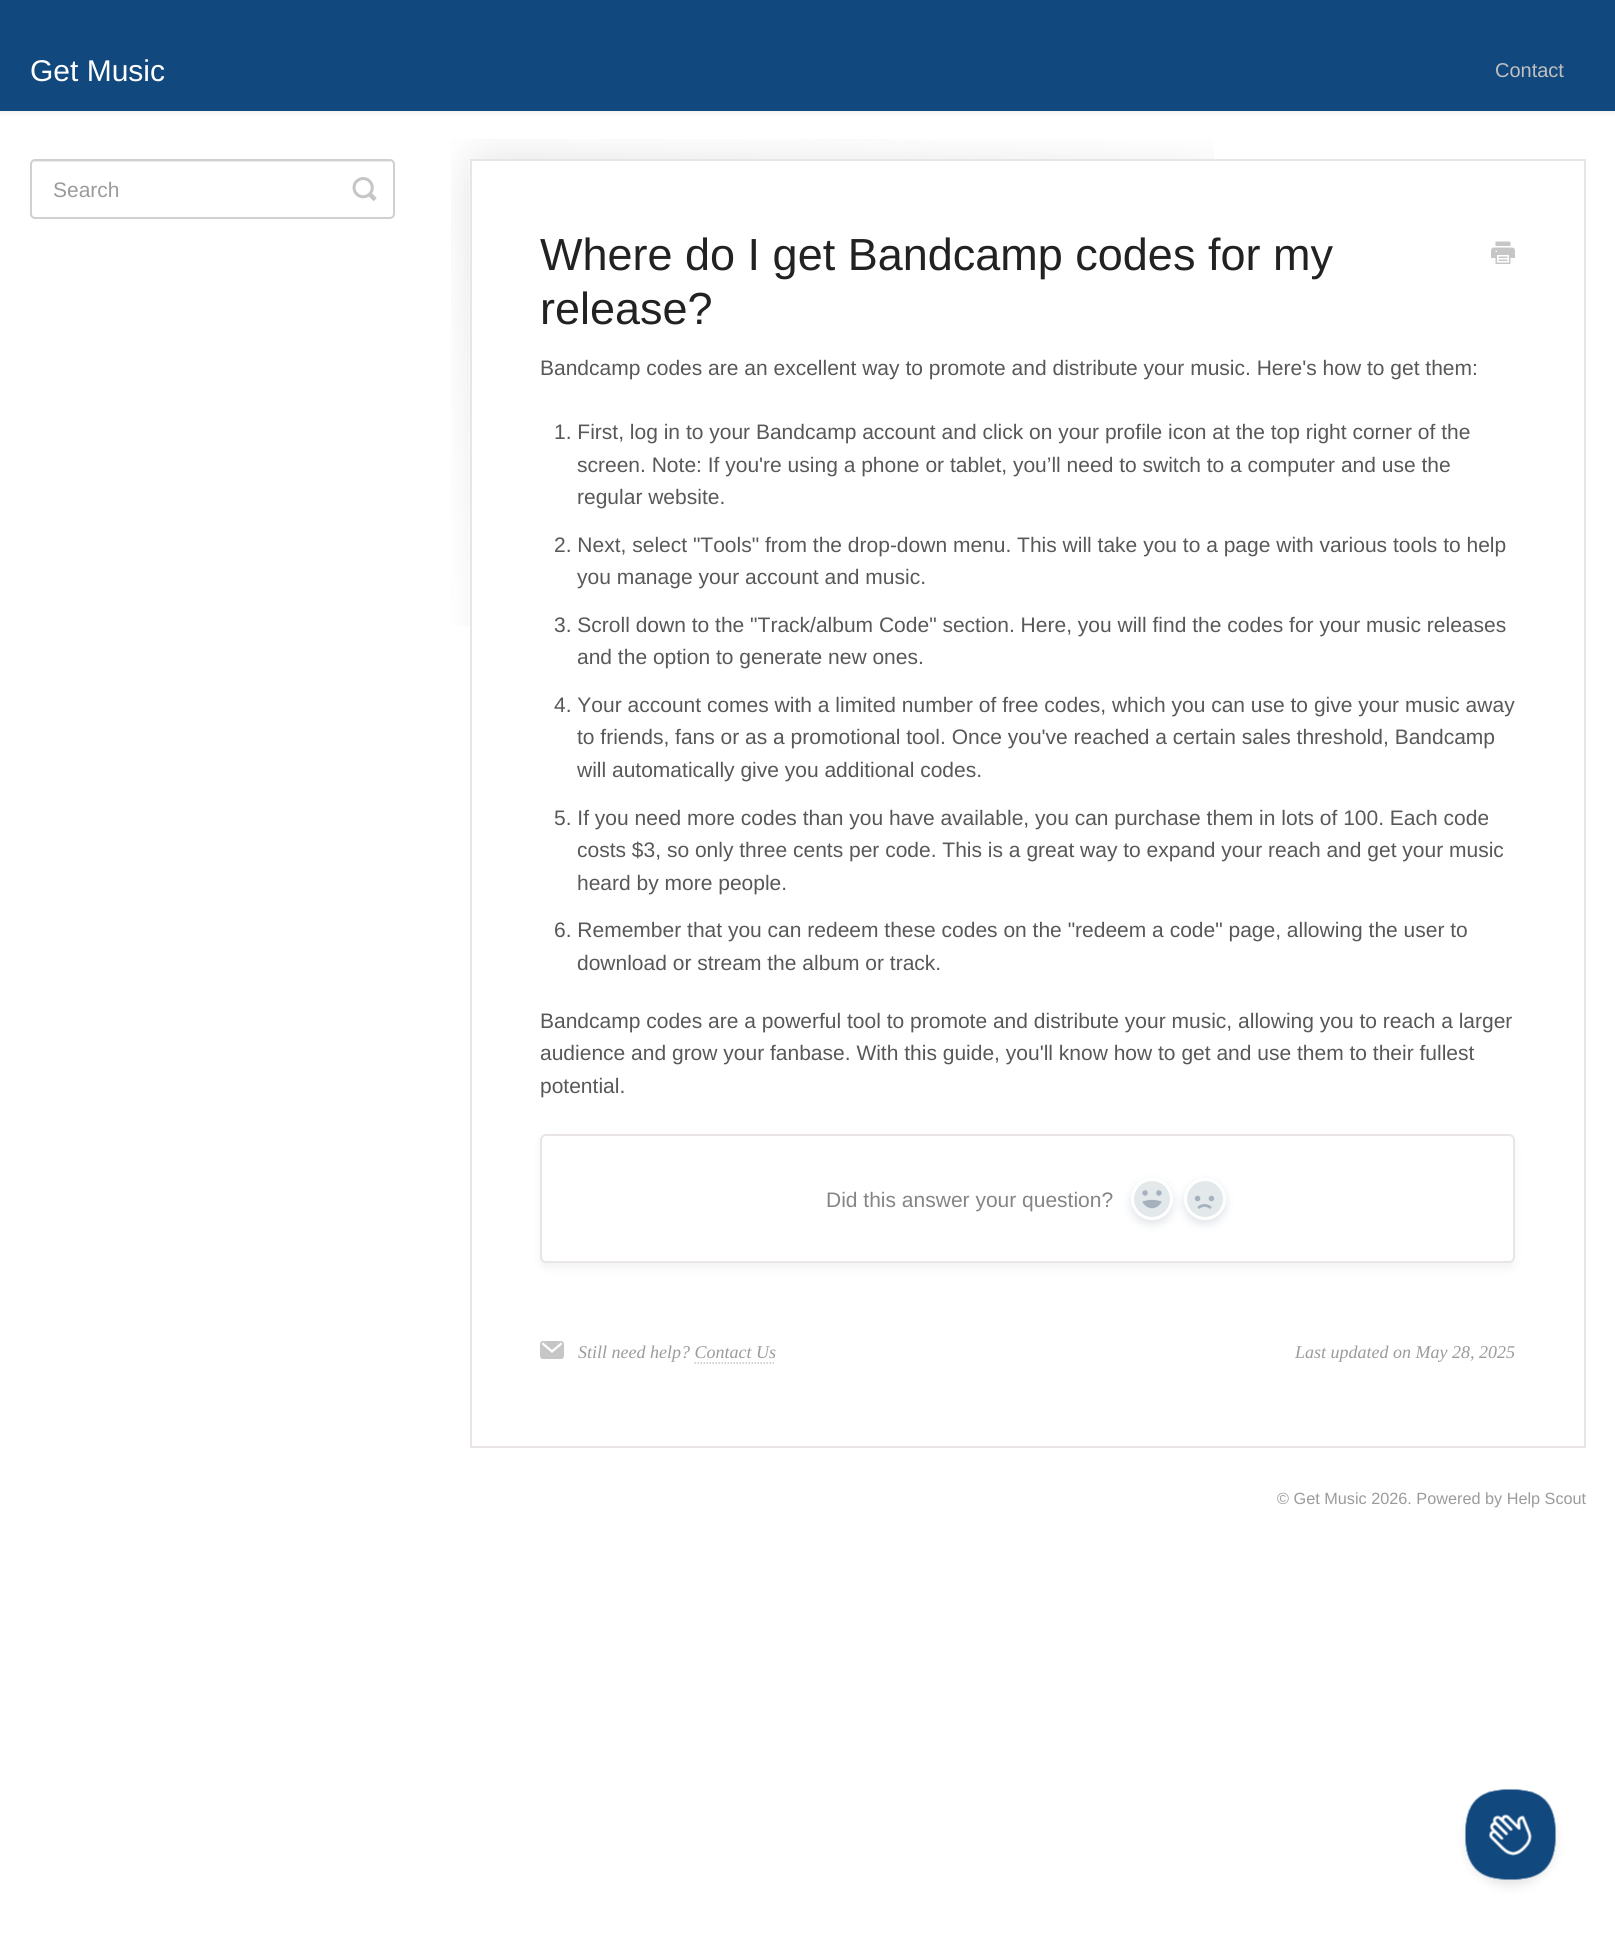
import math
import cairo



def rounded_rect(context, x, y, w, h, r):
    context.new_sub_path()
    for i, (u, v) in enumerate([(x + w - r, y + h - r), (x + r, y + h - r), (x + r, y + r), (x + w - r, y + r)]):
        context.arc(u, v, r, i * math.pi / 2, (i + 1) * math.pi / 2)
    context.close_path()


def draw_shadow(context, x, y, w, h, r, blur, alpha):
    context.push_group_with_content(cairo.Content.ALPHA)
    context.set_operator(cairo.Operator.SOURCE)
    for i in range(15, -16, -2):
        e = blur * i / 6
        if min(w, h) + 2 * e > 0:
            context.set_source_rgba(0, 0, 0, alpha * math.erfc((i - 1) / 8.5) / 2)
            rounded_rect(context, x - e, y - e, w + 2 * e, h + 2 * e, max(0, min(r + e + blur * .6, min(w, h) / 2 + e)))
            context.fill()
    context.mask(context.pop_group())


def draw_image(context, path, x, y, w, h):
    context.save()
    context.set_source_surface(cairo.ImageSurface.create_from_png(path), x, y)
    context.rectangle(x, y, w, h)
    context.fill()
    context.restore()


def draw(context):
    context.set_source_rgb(1, 1, 1)
    context.paint()
    context.set_source_rgb(0, 0, 0)
    draw_shadow(context, 0, 2, 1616, 111, 0, 3, 0.07)
    context.set_source_rgb(17 / 255, 72 / 255, 126 / 255)
    context.rectangle(0, 0, 1615, 111)
    context.fill()
    context.set_source_rgb(236 / 255, 236 / 255, 236 / 255)
    context.new_path()
    context.move_to(34, 162)
    context.line_to(390, 162)
    context.curve_to(392, 162, 393, 163, 393, 165)
    context.curve_to(393, 163, 392, 161, 390, 161)
    context.line_to(35, 161)
    context.line_to(33, 162)
    context.line_to(32, 165)
    context.curve_to(32, 163, 33, 162, 34, 162)
    context.close_path()
    context.fill()
    rounded_rect(context, 31, 160, 363, 58, 4)
    context.set_source_rgb(208 / 255, 208 / 255, 208 / 255)
    context.stroke()
    draw_image(context, "images/1.png", 352, 177, 25, 24)
    draw_image(context, "images/2.png", 451, 139, 763, 487)
    context.rectangle(471, 160, 1114, 1287)
    context.set_source_rgb(233 / 255, 229 / 255, 229 / 255)
    context.stroke()
    draw_image(context, "images/3.png", 1491, 241, 24, 23)
    context.set_source_rgb(0, 0, 0)
    draw_shadow(context, 540, 1139, 975, 129, 6, 4.5, 0.05)
    context.set_source_rgb(1, 1, 1)
    rounded_rect(context, 541, 1135, 973, 127, 5)
    context.fill_preserve()
    context.set_source_rgb(233 / 255, 229 / 255, 229 / 255)
    context.stroke()
    context.set_source_rgb(193 / 255, 203 / 255, 212 / 255)
    draw_shadow(context, 1131, 1182, 42, 42, 21, 4.5, 0.5)
    context.set_source_rgb(227 / 255, 232 / 255, 235 / 255)
    context.arc(1152, 1199, 19.5, 0, 2 * math.pi)
    context.fill_preserve()
    context.set_source_rgb(1, 1, 1)
    context.set_line_width(3)
    context.stroke()
    draw_image(context, "images/4.png", 1142, 1190, 20, 19)
    context.set_source_rgb(193 / 255, 203 / 255, 212 / 255)
    draw_shadow(context, 1184, 1182, 42, 42, 21, 4.5, 0.5)
    context.set_source_rgb(227 / 255, 232 / 255, 235 / 255)
    context.arc(1205, 1199, 19.5, 0, 2 * math.pi)
    context.fill_preserve()
    context.set_source_rgb(1, 1, 1)
    context.stroke()
    draw_image(context, "images/5.png", 1194, 1195, 21, 14)
    draw_image(context, "images/6.png", 540, 1341, 24, 18)
    context.new_path()
    context.move_to(694.5, 1363)
    context.line_to(775.5, 1363)
    context.set_source_rgb(197 / 255, 197 / 255, 197 / 255)
    context.set_line_width(1.5)
    context.set_dash([1.5, 1.5])
    context.stroke()
    context.set_source_rgb(0, 0, 0)
    draw_shadow(context, 1466, 1796, 90, 90, 45, 5, 0.1)
    draw_image(context, "images/7.png", 1465, 1789, 91, 91)
    context.select_font_face("Liberation Sans")
    context.set_font_size(30)
    context.set_source_rgb(1, 1, 1)
    context.move_to(30, 81)
    context.show_text("Get Music")
    context.set_font_size(20)
    context.set_source_rgb(192 / 255, 192 / 255, 192 / 255)
    context.move_to(1495, 77)
    context.show_text("Contact")
    context.set_font_size(21)
    context.set_source_rgb(155 / 255, 155 / 255, 155 / 255)
    context.move_to(53, 197)
    context.show_text("Search")
    context.set_font_size(45)
    context.set_source_rgb(34 / 255, 34 / 255, 34 / 255)
    context.move_to(540, 270)
    context.show_text("Where do I get Bandcamp codes for my")
    context.move_to(540, 324)
    context.show_text("release?")
    context.set_font_size(21)
    context.set_source_rgb(88 / 255, 88 / 255, 88 / 255)
    context.move_to(540, 375)
    context.show_text("Bandcamp codes are an excellent way to promote and distribute your music. Here's how to get them:")
    context.move_to(554, 439)
    context.show_text("1. First, log in to your Bandcamp account and click on your profile icon at the top right corner of the")
    context.move_to(577, 472)
    context.show_text("screen. Note: If you're using a phone or tablet, you’ll need to switch to a computer and use the")
    context.move_to(577, 504)
    context.show_text("regular website.")
    context.move_to(554, 552)
    context.show_text("2. Next, select \"Tools\" from the drop-down menu. This will take you to a page with various tools to help")
    context.move_to(577, 584)
    context.show_text("you manage your account and music.")
    context.move_to(554, 632)
    context.show_text("3. Scroll down to the \"Track/album Code\" section. Here, you will find the codes for your music releases")
    context.move_to(577, 664)
    context.show_text("and the option to generate new ones.")
    context.move_to(554, 712)
    context.show_text("4. Your account comes with a limited number of free codes, which you can use to give your music away")
    context.move_to(577, 744)
    context.show_text("to friends, fans or as a promotional tool. Once you've reached a certain sales threshold, Bandcamp")
    context.move_to(577, 777)
    context.show_text("will automatically give you additional codes.")
    context.move_to(554, 825)
    context.show_text("5. If you need more codes than you have available, you can purchase them in lots of 100. Each code")
    context.move_to(577, 857)
    context.show_text("costs $3, so only three cents per code. This is a great way to expand your reach and get your music")
    context.move_to(577, 890)
    context.show_text("heard by more people.")
    context.move_to(554, 937)
    context.show_text("6. Remember that you can redeem these codes on the \"redeem a code\" page, allowing the user to")
    context.move_to(577, 970)
    context.show_text("download or stream the album or track.")
    context.move_to(540, 1028)
    context.show_text("Bandcamp codes are a powerful tool to promote and distribute your music, allowing you to reach a larger")
    context.move_to(540, 1060)
    context.show_text("audience and grow your fanbase. With this guide, you'll know how to get and use them to their fullest")
    context.move_to(540, 1093)
    context.show_text("potential.")
    context.set_source_rgb(133 / 255, 133 / 255, 133 / 255)
    context.move_to(826, 1207)
    context.show_text("Did this answer your question?")
    context.select_font_face("Liberation Serif", cairo.FontSlant.ITALIC)
    context.set_font_size(18)
    context.set_source_rgb(155 / 255, 155 / 255, 155 / 255)
    context.move_to(578, 1358)
    context.show_text("Still need help? Contact Us")
    context.move_to(1295, 1358)
    context.show_text("Last updated on May 28, 2025")
    context.select_font_face("Liberation Sans")
    context.set_font_size(16.25)
    context.move_to(1277, 1504)
    context.show_text("© Get Music 2026. Powered by Help Scout")


surface = cairo.ImageSurface(cairo.Format.RGB24, 1615, 1939)
context = cairo.Context(surface)
options = cairo.FontOptions()
options.set_hint_metrics(cairo.HintMetrics.OFF)
options.set_hint_style(cairo.HintStyle.NONE)
context.set_font_options(options)
context.set_miter_limit(4)
draw(context)
surface.write_to_png("out.png")
